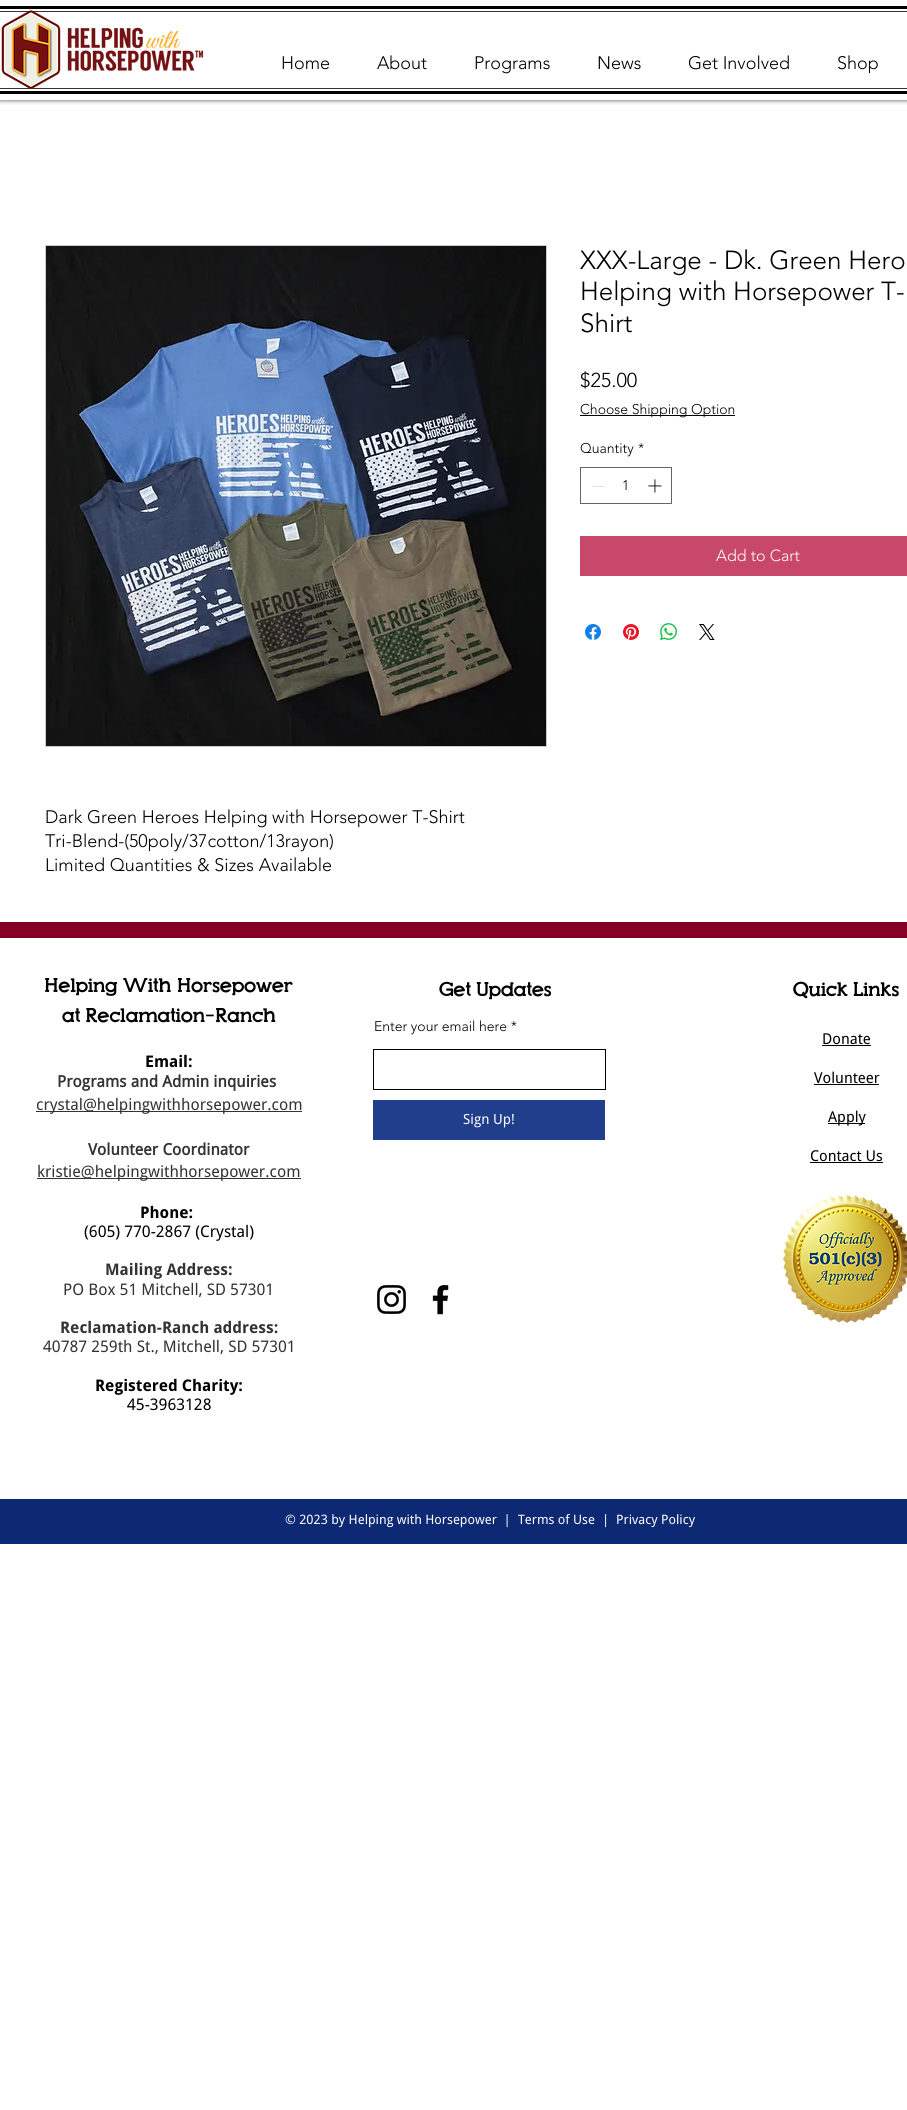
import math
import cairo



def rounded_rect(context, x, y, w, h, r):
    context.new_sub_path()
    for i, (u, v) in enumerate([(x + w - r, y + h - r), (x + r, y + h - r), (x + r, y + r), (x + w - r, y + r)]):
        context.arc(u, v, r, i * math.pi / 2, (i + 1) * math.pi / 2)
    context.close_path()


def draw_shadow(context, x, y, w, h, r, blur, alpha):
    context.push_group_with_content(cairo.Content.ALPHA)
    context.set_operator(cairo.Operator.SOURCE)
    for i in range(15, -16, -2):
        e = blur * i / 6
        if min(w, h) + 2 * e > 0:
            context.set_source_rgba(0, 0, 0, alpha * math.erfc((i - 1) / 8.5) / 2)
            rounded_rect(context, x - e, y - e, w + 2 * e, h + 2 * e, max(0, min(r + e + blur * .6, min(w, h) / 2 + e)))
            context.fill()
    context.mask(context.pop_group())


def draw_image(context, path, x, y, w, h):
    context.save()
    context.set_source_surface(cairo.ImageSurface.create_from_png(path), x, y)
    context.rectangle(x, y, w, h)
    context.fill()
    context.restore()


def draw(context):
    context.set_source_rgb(1, 1, 1)
    context.paint()
    context.save()
    context.rectangle(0, 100, 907, 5)
    context.clip()
    context.set_source_rgb(0, 0, 0)
    draw_shadow(context, 0, 0, 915, 100, 0, 2.5, 0.7)
    context.restore()
    context.set_source_rgb(0, 0, 0)
    context.rectangle(0, 6, 907, 3)
    context.fill()
    context.rectangle(0, 91, 907, 3)
    context.fill()
    context.set_source_rgb(51 / 255, 51 / 255, 51 / 255)
    context.rectangle(0, 11, 907, 1)
    context.fill()
    context.rectangle(0, 88, 907, 1)
    context.fill()
    draw_image(context, "images/1.png", 1, 10, 203, 79)
    context.set_source_rgb(0, 0, 0)
    context.rectangle(580, 415, 155, 1)
    context.fill()
    context.rectangle(580.5, 467.5, 91, 36)
    context.set_source_rgb(102 / 255, 102 / 255, 102 / 255)
    context.set_line_width(1)
    context.stroke()
    context.set_source_rgb(227 / 255, 227 / 255, 227 / 255)
    context.rectangle(592, 486, 13, 1)
    context.fill()
    draw_image(context, "images/2.png", 648, 479, 14, 14)
    context.set_source_rgb(200 / 255, 72 / 255, 105 / 255)
    context.rectangle(580, 536, 327, 40)
    context.fill()
    draw_image(context, "images/3.png", 585, 624, 16, 16)
    draw_image(context, "images/4.png", 623, 624, 16, 16)
    draw_image(context, "images/5.png", 660, 623, 17, 17)
    draw_image(context, "images/6.png", 699, 624, 16, 16)
    context.rectangle(45.5, 245.5, 501, 501)
    context.set_source_rgb(204 / 255, 204 / 255, 204 / 255)
    context.stroke()
    draw_image(context, "images/7.png", 46, 246, 500, 500)
    context.set_source_rgb(135 / 255, 0, 38 / 255)
    context.rectangle(0, 922, 907, 16)
    context.fill()
    context.set_source_rgb(51 / 255, 51 / 255, 51 / 255)
    context.rectangle(36, 1111, 266, 1)
    context.fill()
    context.rectangle(37, 1178, 264, 1)
    context.fill()
    context.rectangle(373.5, 1049.5, 232, 40)
    context.set_source_rgb(0, 0, 0)
    context.stroke()
    context.set_source_rgb(33 / 255, 62 / 255, 140 / 255)
    context.rectangle(373, 1100, 232, 40)
    context.fill()
    draw_image(context, "images/8.png", 377, 1285, 29, 29)
    draw_image(context, "images/9.png", 432, 1285, 17, 30)
    context.set_source_rgb(0, 0, 0)
    context.rectangle(822, 1045, 49, 1)
    context.fill()
    context.rectangle(814, 1084, 65, 1)
    context.fill()
    context.rectangle(828, 1123, 37, 1)
    context.fill()
    context.rectangle(810, 1162, 73, 1)
    context.fill()
    draw_image(context, "images/10.png", 783, 1195, 124, 128)
    context.set_source_rgb(14 / 255, 41 / 255, 115 / 255)
    context.rectangle(0, 1499, 907, 45)
    context.fill()
    context.select_font_face("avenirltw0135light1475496 Light")
    context.set_font_size(18)
    context.set_source_rgb(0, 0, 0)
    context.move_to(281, 69)
    context.show_text("Home")
    context.move_to(377, 69)
    context.show_text("About")
    context.move_to(474, 69)
    context.show_text("Programs")
    context.move_to(597, 69)
    context.show_text("News")
    context.move_to(688, 69)
    context.show_text("Get Involved")
    context.move_to(837, 69)
    context.show_text("Shop")
    context.set_font_size(26)
    context.move_to(580, 269)
    context.show_text("XXX-Large - Dk. Green Hero")
    context.move_to(580, 300)
    context.show_text("Helping with Horsepower T-")
    context.move_to(580, 332)
    context.show_text("Shirt")
    context.set_font_size(20)
    context.move_to(580, 387)
    context.show_text("$25.00")
    context.set_font_size(14)
    context.move_to(580, 414)
    context.show_text("Choose Shipping Option")
    context.move_to(580, 453)
    context.show_text("Quantity")
    context.move_to(638, 453)
    context.show_text("*")
    context.move_to(622, 490)
    context.show_text("1")
    context.set_font_size(16)
    context.set_source_rgb(1, 1, 1)
    context.move_to(716, 561)
    context.show_text("Add to Cart")
    context.set_font_size(18)
    context.set_source_rgb(0, 0, 0)
    context.move_to(45, 823)
    context.show_text("Dark Green Heroes Helping with Horsepower T-Shirt")
    context.move_to(45, 847)
    context.show_text("Tri-Blend-(50poly/37cotton/13rayon)")
    context.move_to(45, 871)
    context.show_text("Limited Quantities & Sizes Available")
    context.select_font_face("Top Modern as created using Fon")
    context.set_font_size(20)
    context.move_to(44, 992)
    context.show_text("Helping With Horsepower")
    context.move_to(62, 1022)
    context.show_text("at Reclamation-Ranch")
    context.select_font_face("Droid Sans", cairo.FontSlant.NORMAL, cairo.FontWeight.BOLD)
    context.set_font_size(16)
    context.move_to(145, 1067)
    context.show_text("Email:")
    context.select_font_face("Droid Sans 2", cairo.FontSlant.NORMAL, cairo.FontWeight.BOLD)
    context.set_source_rgb(51 / 255, 51 / 255, 51 / 255)
    context.move_to(57, 1087)
    context.show_text("Programs and Admin inquiries")
    context.select_font_face("Droid Sans")
    context.move_to(36, 1110)
    context.show_text("crystal@helpingwithhorsepower.com")
    context.select_font_face("Droid Sans 2", cairo.FontSlant.NORMAL, cairo.FontWeight.BOLD)
    context.move_to(88, 1155)
    context.show_text("Volunteer Coordinator")
    context.select_font_face("Droid Sans")
    context.move_to(37, 1177)
    context.show_text("kristie@helpingwithhorsepower.com")
    context.select_font_face("Droid Sans", cairo.FontSlant.NORMAL, cairo.FontWeight.BOLD)
    context.set_source_rgb(0, 0, 0)
    context.move_to(140, 1218)
    context.show_text("Phone:")
    context.select_font_face("Droid Sans")
    context.move_to(84, 1237)
    context.show_text("(605) 770-2867 (Crystal)")
    context.select_font_face("Droid Sans", cairo.FontSlant.NORMAL, cairo.FontWeight.BOLD)
    context.set_source_rgb(51 / 255, 51 / 255, 51 / 255)
    context.move_to(105, 1275)
    context.show_text("Mailing Address:")
    context.select_font_face("Droid Sans")
    context.move_to(63, 1295)
    context.show_text("PO Box 51 Mitchell, SD 57301")
    context.select_font_face("Droid Sans", cairo.FontSlant.NORMAL, cairo.FontWeight.BOLD)
    context.move_to(60, 1333)
    context.show_text("Reclamation-Ranch address:")
    context.select_font_face("Droid Sans")
    context.move_to(43, 1352)
    context.show_text("40787 259th St., Mitchell, SD 57301")
    context.select_font_face("Droid Sans", cairo.FontSlant.NORMAL, cairo.FontWeight.BOLD)
    context.set_source_rgb(0, 0, 0)
    context.move_to(95, 1391)
    context.show_text("Registered Charity:")
    context.select_font_face("Droid Sans")
    context.move_to(127, 1410)
    context.show_text("45-3963128")
    context.select_font_face("Top Modern as created using Fon")
    context.set_font_size(20)
    context.move_to(439, 996)
    context.show_text("Get Updates")
    context.select_font_face("avenirltw0135light1475496 Light")
    context.set_font_size(14)
    context.move_to(374, 1031)
    context.show_text("Enter your email here *")
    context.select_font_face("Droid Sans")
    context.set_source_rgb(1, 1, 1)
    context.move_to(463, 1124)
    context.show_text("Sign Up!")
    context.select_font_face("Top Modern as created using Fon")
    context.set_font_size(20)
    context.set_source_rgb(0, 0, 0)
    context.move_to(793, 996)
    context.show_text("Quick Links")
    context.select_font_face("Droid Sans")
    context.set_font_size(15)
    context.move_to(822, 1044)
    context.show_text("Donate")
    context.move_to(814, 1083)
    context.show_text("Volunteer")
    context.move_to(828, 1122)
    context.show_text("Apply")
    context.move_to(810, 1161)
    context.show_text("Contact Us")
    context.set_font_size(13)
    context.set_source_rgb(1, 1, 1)
    context.move_to(285, 1524)
    context.show_text("© 2023 by Helping with Horsepower  |")
    context.move_to(518, 1524)
    context.show_text("Terms of Use")
    context.move_to(602, 1524)
    context.show_text("|")
    context.move_to(616, 1524)
    context.show_text("Privacy Policy")


surface = cairo.ImageSurface(cairo.Format.RGB24, 907, 2110)
context = cairo.Context(surface)
options = cairo.FontOptions()
options.set_hint_metrics(cairo.HintMetrics.OFF)
options.set_hint_style(cairo.HintStyle.NONE)
context.set_font_options(options)
context.set_miter_limit(4)
draw(context)
surface.write_to_png("out.png")
